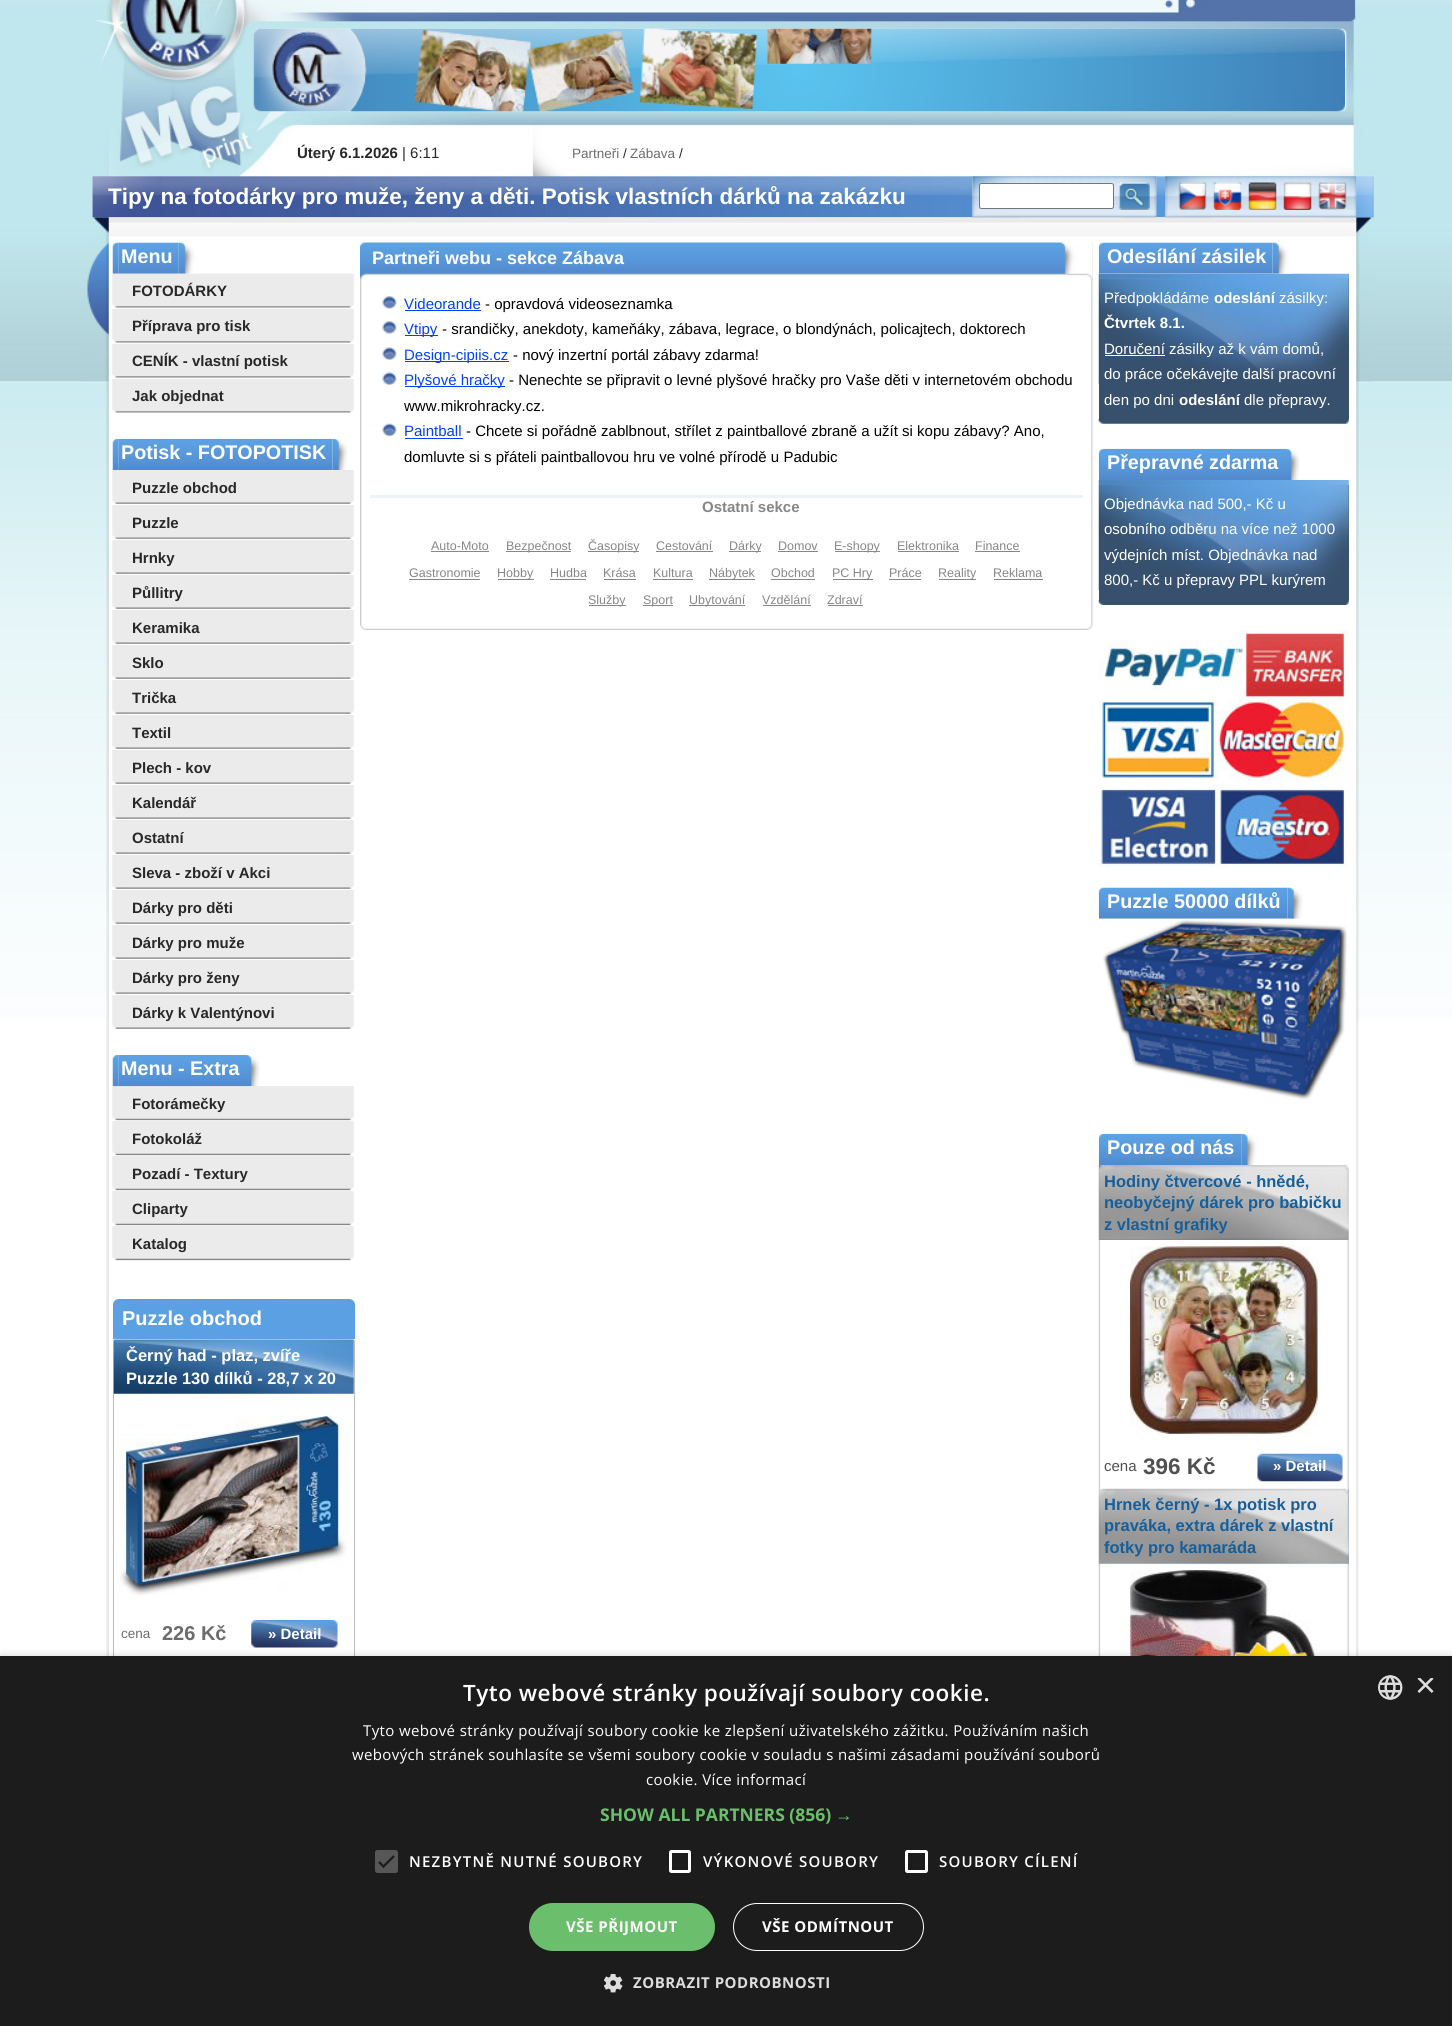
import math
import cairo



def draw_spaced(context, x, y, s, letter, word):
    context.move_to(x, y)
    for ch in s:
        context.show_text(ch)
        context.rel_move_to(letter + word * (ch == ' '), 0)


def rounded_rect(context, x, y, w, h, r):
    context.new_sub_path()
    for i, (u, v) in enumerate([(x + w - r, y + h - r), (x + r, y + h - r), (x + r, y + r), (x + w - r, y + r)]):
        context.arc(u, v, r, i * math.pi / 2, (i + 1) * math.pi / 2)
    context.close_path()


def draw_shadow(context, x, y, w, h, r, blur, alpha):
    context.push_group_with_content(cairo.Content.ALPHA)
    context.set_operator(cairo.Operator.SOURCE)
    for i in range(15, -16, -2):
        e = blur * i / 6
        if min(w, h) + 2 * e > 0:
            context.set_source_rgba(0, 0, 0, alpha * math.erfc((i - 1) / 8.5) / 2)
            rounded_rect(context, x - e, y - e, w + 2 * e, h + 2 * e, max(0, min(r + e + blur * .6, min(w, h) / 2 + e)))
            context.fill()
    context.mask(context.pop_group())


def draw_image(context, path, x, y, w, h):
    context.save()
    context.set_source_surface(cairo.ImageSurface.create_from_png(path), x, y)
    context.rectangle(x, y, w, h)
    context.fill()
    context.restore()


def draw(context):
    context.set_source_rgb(1, 1, 1)
    context.paint()
    draw_image(context, "images/1.png", 0, 0, 1452, 1020)
    draw_image(context, "images/2.png", 91, 0, 1283, 218)
    draw_image(context, "images/3.png", 253, 28, 1092, 84)
    draw_image(context, "images/16.png", 106, 217, 1253, 1439)
    draw_image(context, "images/17.png", 81, 217, 1292, 165)
    draw_image(context, "images/4.png", 972, 176, 185, 42)
    draw_image(context, "images/5.png", 972, 176, 47, 42)
    draw_image(context, "images/6.png", 1124, 176, 33, 42)
    context.set_source_rgb(1, 1, 1)
    rounded_rect(context, 979.5, 183.5, 134, 25, 2)
    context.fill_preserve()
    context.set_source_rgb(118 / 255, 118 / 255, 118 / 255)
    context.set_line_width(1)
    context.stroke()
    draw_image(context, "images/7.png", 1118, 182, 32, 28)
    draw_image(context, "images/8.png", 1165, 176, 192, 42)
    draw_image(context, "images/9.png", 1165, 176, 46, 42)
    draw_image(context, "images/10.png", 1324, 176, 33, 42)
    draw_image(context, "images/11.png", 1178, 182, 29, 28)
    draw_image(context, "images/12.png", 1213, 182, 29, 28)
    draw_image(context, "images/13.png", 1248, 182, 29, 28)
    draw_image(context, "images/14.png", 1283, 182, 29, 28)
    draw_image(context, "images/15.png", 1318, 182, 29, 28)
    draw_image(context, "images/21.png", 112, 273, 241, 36)
    draw_image(context, "images/22.png", 112, 273, 242, 36)
    draw_image(context, "images/18.png", 112, 242, 7, 32)
    draw_image(context, "images/19.png", 118, 242, 61, 32)
    draw_image(context, "images/20.png", 178, 242, 19, 32)
    draw_image(context, "images/23.png", 112, 308, 241, 36)
    draw_image(context, "images/24.png", 112, 309, 242, 35)
    draw_image(context, "images/23.png", 112, 343, 241, 36)
    draw_image(context, "images/24.png", 112, 344, 242, 35)
    draw_image(context, "images/23.png", 112, 378, 241, 36)
    draw_image(context, "images/24.png", 112, 379, 242, 35)
    draw_image(context, "images/25.png", 112, 438, 7, 32)
    draw_image(context, "images/26.png", 118, 438, 215, 32)
    draw_image(context, "images/27.png", 332, 438, 16, 32)
    draw_image(context, "images/28.png", 112, 470, 1, 35)
    draw_image(context, "images/29.png", 112, 470, 242, 35)
    draw_image(context, "images/28.png", 112, 505, 1, 35)
    draw_image(context, "images/30.png", 112, 505, 242, 35)
    draw_image(context, "images/28.png", 112, 540, 1, 35)
    draw_image(context, "images/29.png", 112, 540, 242, 35)
    draw_image(context, "images/28.png", 112, 575, 1, 35)
    draw_image(context, "images/29.png", 112, 575, 242, 35)
    draw_image(context, "images/28.png", 112, 610, 1, 35)
    draw_image(context, "images/29.png", 112, 610, 242, 35)
    draw_image(context, "images/28.png", 112, 645, 1, 35)
    draw_image(context, "images/29.png", 112, 645, 242, 35)
    draw_image(context, "images/28.png", 112, 680, 1, 35)
    draw_image(context, "images/29.png", 112, 680, 242, 35)
    draw_image(context, "images/28.png", 112, 715, 1, 35)
    draw_image(context, "images/29.png", 112, 715, 242, 35)
    draw_image(context, "images/28.png", 112, 750, 1, 35)
    draw_image(context, "images/29.png", 112, 750, 242, 35)
    draw_image(context, "images/28.png", 112, 785, 1, 35)
    draw_image(context, "images/29.png", 112, 785, 242, 35)
    draw_image(context, "images/28.png", 112, 820, 1, 35)
    draw_image(context, "images/29.png", 112, 820, 242, 35)
    draw_image(context, "images/28.png", 112, 855, 1, 35)
    draw_image(context, "images/29.png", 112, 855, 242, 35)
    draw_image(context, "images/28.png", 112, 890, 1, 35)
    draw_image(context, "images/29.png", 112, 890, 242, 35)
    draw_image(context, "images/28.png", 112, 925, 1, 35)
    draw_image(context, "images/29.png", 112, 925, 242, 35)
    draw_image(context, "images/28.png", 112, 960, 1, 35)
    draw_image(context, "images/29.png", 112, 960, 242, 35)
    draw_image(context, "images/28.png", 112, 995, 1, 35)
    draw_image(context, "images/29.png", 112, 995, 242, 35)
    draw_image(context, "images/34.png", 112, 1086, 241, 35)
    draw_image(context, "images/35.png", 112, 1086, 242, 35)
    draw_image(context, "images/31.png", 112, 1055, 7, 32)
    draw_image(context, "images/32.png", 118, 1055, 127, 32)
    draw_image(context, "images/33.png", 245, 1055, 15, 32)
    draw_image(context, "images/36.png", 112, 1121, 241, 35)
    draw_image(context, "images/37.png", 112, 1121, 242, 35)
    draw_image(context, "images/36.png", 112, 1156, 241, 35)
    draw_image(context, "images/37.png", 112, 1156, 242, 35)
    draw_image(context, "images/36.png", 112, 1191, 241, 35)
    draw_image(context, "images/37.png", 112, 1191, 242, 35)
    draw_image(context, "images/36.png", 112, 1226, 241, 35)
    draw_image(context, "images/37.png", 112, 1226, 242, 35)
    context.set_source_rgb(91 / 255, 160 / 255, 227 / 255)
    context.new_path()
    context.move_to(119, 1299)
    context.line_to(349, 1299)
    context.curve_to(352.5, 1299, 355, 1301.5, 355, 1305)
    context.line_to(355, 1339)
    context.line_to(113, 1339)
    context.line_to(113, 1305)
    context.curve_to(113, 1301.5, 115.5, 1299, 119, 1299)
    context.close_path()
    context.fill()
    rounded_rect(context, 113.5, 1339.5, 241, 321, 2)
    context.set_source_rgb(187 / 255, 187 / 255, 187 / 255)
    context.stroke()
    draw_image(context, "images/38.png", 113, 1340, 241, 54)
    draw_image(context, "images/39.png", 119, 1416, 229, 180)
    draw_image(context, "images/40.png", 251, 1620, 87, 28)
    draw_image(context, "images/41.png", 360, 242, 733, 383)
    draw_image(context, "images/42.png", 360, 242, 733, 38)
    draw_image(context, "images/43.png", 382, 296, 15, 13)
    context.set_source_rgb(0, 66 / 255, 1)
    context.rectangle(405, 310, 76, 1)
    context.fill()
    draw_image(context, "images/43.png", 382, 321, 15, 13)
    context.rectangle(405, 335, 33, 1)
    context.fill()
    draw_image(context, "images/44.png", 382, 347, 15, 13)
    context.rectangle(405, 361, 104, 1)
    context.fill()
    draw_image(context, "images/44.png", 382, 372, 15, 13)
    context.rectangle(405, 386, 100, 1)
    context.fill()
    draw_image(context, "images/45.png", 382, 423, 15, 14)
    context.rectangle(405, 438, 58, 1)
    context.fill()
    context.set_source_rgb(235 / 255, 242 / 255, 248 / 255)
    context.rectangle(370, 495, 713, 3)
    context.fill()
    context.set_source_rgb(135 / 255, 135 / 255, 135 / 255)
    context.rectangle(431, 551, 58, 1)
    context.fill()
    context.rectangle(506, 551, 65, 1)
    context.fill()
    context.rectangle(588, 551, 51, 1)
    context.fill()
    context.rectangle(656, 551, 57, 1)
    context.fill()
    context.rectangle(729, 551, 32, 1)
    context.fill()
    context.rectangle(778, 551, 40, 1)
    context.fill()
    context.rectangle(835, 551, 45, 1)
    context.fill()
    context.rectangle(898, 551, 61, 1)
    context.fill()
    context.rectangle(975, 551, 45, 1)
    context.fill()
    context.rectangle(409, 579, 71, 1)
    context.fill()
    context.rectangle(498, 579, 36, 1)
    context.fill()
    context.rectangle(550, 579, 36, 1)
    context.fill()
    context.rectangle(604, 579, 32, 1)
    context.fill()
    context.rectangle(653, 579, 40, 1)
    context.fill()
    context.rectangle(709, 579, 46, 1)
    context.fill()
    context.rectangle(771, 579, 44, 1)
    context.fill()
    context.rectangle(833, 579, 40, 1)
    context.fill()
    context.rectangle(889, 579, 32, 1)
    context.fill()
    context.rectangle(939, 579, 37, 1)
    context.fill()
    context.rectangle(994, 579, 49, 1)
    context.fill()
    context.rectangle(589, 605, 37, 1)
    context.fill()
    context.rectangle(643, 605, 30, 1)
    context.fill()
    context.rectangle(689, 605, 56, 1)
    context.fill()
    context.rectangle(763, 605, 48, 1)
    context.fill()
    context.rectangle(828, 605, 35, 1)
    context.fill()
    draw_image(context, "images/46.png", 360, 625, 733, 5)
    context.set_source_rgb(92 / 255, 161 / 255, 228 / 255)
    context.rectangle(1099, 274, 250, 5)
    context.fill()
    draw_image(context, "images/50.png", 1098, 273, 251, 6)
    draw_image(context, "images/47.png", 1098, 242, 7, 32)
    draw_image(context, "images/48.png", 1105, 242, 168, 32)
    draw_image(context, "images/49.png", 1272, 242, 20, 32)
    context.set_source_rgb(55 / 255, 80 / 255, 109 / 255)
    context.rectangle(1099, 279, 250, 140)
    context.fill()
    draw_image(context, "images/51.png", 1098, 278, 251, 106)
    context.set_source_rgb(1, 1, 1)
    context.rectangle(1105, 355, 60, 1)
    context.fill()
    draw_image(context, "images/52.png", 1098, 418, 251, 6)
    draw_image(context, "images/53.png", 1098, 448, 7, 32)
    draw_image(context, "images/54.png", 1105, 448, 180, 32)
    draw_image(context, "images/55.png", 1285, 448, 15, 32)
    draw_image(context, "images/56.png", 1098, 480, 251, 5)
    context.set_source_rgb(55 / 255, 80 / 255, 109 / 255)
    context.rectangle(1099, 485, 250, 115)
    context.fill()
    draw_image(context, "images/57.png", 1098, 485, 251, 105)
    draw_image(context, "images/58.png", 1098, 600, 251, 5)
    draw_image(context, "images/59.png", 1098, 630, 251, 238)
    draw_image(context, "images/60.png", 1098, 887, 7, 32)
    draw_image(context, "images/61.png", 1105, 887, 183, 32)
    draw_image(context, "images/62.png", 1287, 887, 16, 32)
    draw_image(context, "images/63.png", 1103, 920, 244, 180)
    draw_image(context, "images/53.png", 1098, 1133, 7, 32)
    draw_image(context, "images/64.png", 1105, 1133, 137, 32)
    draw_image(context, "images/65.png", 1241, 1133, 16, 32)
    draw_image(context, "images/66.png", 1098, 1165, 251, 75)
    draw_image(context, "images/67.png", 1098, 1240, 251, 249)
    draw_image(context, "images/68.png", 1130, 1246, 188, 188)
    draw_image(context, "images/69.png", 1257, 1453, 86, 29)
    context.set_source_rgb(83 / 255, 140 / 255, 207 / 255)
    context.rectangle(1099, 1489, 250, 75)
    context.fill()
    draw_image(context, "images/70.png", 1098, 1488, 251, 76)
    draw_image(context, "images/71.png", 1098, 1563, 251, 93)
    draw_image(context, "images/72.png", 1130, 1570, 188, 86)
    draw_image(context, "images/73.png", 1233, 1641, 75, 15)
    context.set_source_rgb(0, 0, 0)
    draw_shadow(context, 1, 1659, 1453, 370, 0, 5, 0.35)
    context.set_source_rgb(28 / 255, 28 / 255, 28 / 255)
    context.rectangle(0, 1656, 1452, 370)
    context.fill()
    draw_image(context, "images/74.png", 1378, 1675, 25, 25)
    context.set_source_rgb(87 / 255, 87 / 255, 87 / 255)
    rounded_rect(context, 375, 1850, 23, 23, 2.5)
    context.fill()
    context.new_path()
    context.move_to(379, 1862)
    context.line_to(383.5, 1866.5)
    context.line_to(394, 1856)
    context.set_source_rgb(28 / 255, 28 / 255, 28 / 255)
    context.set_line_width(2.3)
    context.stroke()
    rounded_rect(context, 670.5, 1851.5, 19, 20, 1)
    context.set_source_rgb(1, 1, 1)
    context.set_line_width(3)
    context.stroke()
    rounded_rect(context, 906.5, 1851.5, 20, 20, 1)
    context.stroke()
    context.set_source_rgb(107 / 255, 190 / 255, 107 / 255)
    rounded_rect(context, 529, 1903, 186, 48, 24)
    context.fill()
    rounded_rect(context, 733.5, 1903.5, 190, 47, 23.5)
    context.set_source_rgb(1, 1, 1)
    context.set_line_width(1)
    context.stroke()
    draw_image(context, "images/75.png", 604, 1974, 19, 19)
    context.select_font_face("Liberation Sans", cairo.FontSlant.NORMAL, cairo.FontWeight.BOLD)
    context.set_font_size(15)
    context.set_source_rgb(40 / 255, 40 / 255, 40 / 255)
    context.move_to(297, 158)
    context.show_text("Úterý 6.1.2026")
    context.select_font_face("Liberation Sans")
    context.move_to(402, 158)
    context.show_text("| 6:11")
    context.set_font_size(13.5)
    context.set_source_rgb(108 / 255, 108 / 255, 108 / 255)
    context.move_to(572, 158)
    context.show_text("Partneři")
    context.set_source_rgb(40 / 255, 40 / 255, 40 / 255)
    context.move_to(623, 158)
    context.show_text("/")
    context.set_source_rgb(108 / 255, 108 / 255, 108 / 255)
    context.move_to(630, 158)
    context.show_text("Zábava")
    context.set_source_rgb(40 / 255, 40 / 255, 40 / 255)
    context.move_to(679, 158)
    context.show_text("/")
    context.select_font_face("Liberation Sans", cairo.FontSlant.NORMAL, cairo.FontWeight.BOLD)
    context.set_font_size(22.5)
    context.set_source_rgb(1, 1, 1)
    context.move_to(108, 204)
    context.show_text("Tipy na fotodárky pro muže, ženy a děti. Potisk vlastních dárků na zakázku")
    context.set_font_size(19.75)
    context.move_to(121, 263)
    context.show_text("Menu")
    context.set_font_size(15)
    context.set_source_rgb(40 / 255, 40 / 255, 40 / 255)
    context.move_to(132, 296)
    context.show_text("FOTODÁRKY")
    context.move_to(132, 331)
    context.show_text("Příprava pro tisk")
    context.move_to(132, 366)
    context.show_text("CENÍK - vlastní potisk")
    context.move_to(132, 401)
    context.show_text("Jak objednat")
    context.set_font_size(19.75)
    context.set_source_rgb(1, 1, 1)
    context.move_to(121, 459)
    context.show_text("Potisk - FOTOPOTISK")
    context.set_font_size(15)
    context.set_source_rgb(40 / 255, 40 / 255, 40 / 255)
    context.move_to(132, 493)
    context.show_text("Puzzle obchod")
    context.move_to(132, 528)
    context.show_text("Puzzle")
    context.move_to(132, 563)
    context.show_text("Hrnky")
    context.move_to(132, 598)
    context.show_text("Půllitry")
    context.move_to(132, 633)
    context.show_text("Keramika")
    context.move_to(132, 668)
    context.show_text("Sklo")
    context.move_to(132, 703)
    context.show_text("Trička")
    context.move_to(132, 738)
    context.show_text("Textil")
    context.move_to(132, 773)
    context.show_text("Plech - kov")
    context.move_to(132, 808)
    context.show_text("Kalendář")
    context.move_to(132, 843)
    context.show_text("Ostatní")
    context.move_to(132, 878)
    context.show_text("Sleva - zboží v Akci")
    context.move_to(132, 913)
    context.show_text("Dárky pro děti")
    context.move_to(132, 948)
    context.show_text("Dárky pro muže")
    context.move_to(132, 983)
    context.show_text("Dárky pro ženy")
    context.move_to(132, 1018)
    context.show_text("Dárky k Valentýnovi")
    context.set_font_size(19.75)
    context.set_source_rgb(1, 1, 1)
    context.move_to(121, 1075)
    context.show_text("Menu - Extra")
    context.set_font_size(15)
    context.set_source_rgb(40 / 255, 40 / 255, 40 / 255)
    context.move_to(132, 1109)
    context.show_text("Fotorámečky")
    context.move_to(132, 1144)
    context.show_text("Fotokoláž")
    context.move_to(132, 1179)
    context.show_text("Pozadí - Textury")
    context.move_to(132, 1214)
    context.show_text("Cliparty")
    context.move_to(132, 1249)
    context.show_text("Katalog")
    context.set_font_size(20)
    context.set_source_rgb(1, 1, 1)
    context.move_to(122, 1325)
    context.show_text("Puzzle obchod")
    context.set_font_size(16.5)
    context.move_to(126, 1361)
    context.show_text("Černý had - plaz, zvíře")
    context.move_to(126, 1384)
    context.show_text("Puzzle 130 dílků - 28,7 x 20")
    context.select_font_face("Liberation Sans")
    context.set_font_size(13.5)
    context.set_source_rgb(108 / 255, 108 / 255, 108 / 255)
    context.move_to(121, 1638)
    context.show_text("cena")
    context.select_font_face("Liberation Sans", cairo.FontSlant.NORMAL, cairo.FontWeight.BOLD)
    context.set_font_size(20)
    context.move_to(162, 1640)
    context.show_text("226 Kč")
    context.set_font_size(15)
    context.set_source_rgb(1, 1, 1)
    context.move_to(268, 1639)
    context.show_text("» Detail")
    context.set_font_size(18)
    context.move_to(372, 264)
    context.show_text("Partneři webu - sekce Zábava")
    context.select_font_face("Liberation Sans")
    context.set_font_size(15)
    context.set_source_rgb(0, 66 / 255, 1)
    context.move_to(404, 309)
    context.show_text("Videorande")
    context.set_source_rgb(0, 0, 0)
    context.move_to(485, 309)
    context.show_text("- opravdová videoseznamka")
    context.set_source_rgb(0, 66 / 255, 1)
    context.move_to(404, 334)
    context.show_text("Vtipy")
    context.set_source_rgb(0, 0, 0)
    context.move_to(442, 334)
    context.show_text("- srandičky, anekdoty, kameňáky, zábava, legrace, o blondýnách, policajtech, doktorech")
    context.set_source_rgb(0, 66 / 255, 1)
    context.move_to(404, 360)
    context.show_text("Design-cipiis.cz")
    context.set_source_rgb(0, 0, 0)
    context.move_to(513, 360)
    context.show_text("- nový inzertní portál zábavy zdarma!")
    context.set_source_rgb(0, 66 / 255, 1)
    context.move_to(404, 385)
    context.show_text("Plyšové hračky")
    context.set_source_rgb(0, 0, 0)
    context.move_to(509, 385)
    context.show_text("- Nenechte se připravit o levné plyšové hračky pro Vaše děti v internetovém obchodu")
    context.move_to(404, 411)
    context.show_text("www.mikrohracky.cz.")
    context.set_source_rgb(0, 66 / 255, 1)
    context.move_to(404, 436)
    context.show_text("Paintball")
    context.set_source_rgb(0, 0, 0)
    context.move_to(466, 436)
    context.show_text("- Chcete si pořádně zablbnout, střílet z paintballové zbraně a užít si kopu zábavy? Ano,")
    context.move_to(404, 462)
    context.show_text("domluvte si s přáteli paintballovou hru ve volné přírodě u Padubic")
    context.select_font_face("Liberation Sans", cairo.FontSlant.NORMAL, cairo.FontWeight.BOLD)
    context.set_source_rgb(135 / 255, 135 / 255, 135 / 255)
    context.move_to(702, 512)
    context.show_text("Ostatní sekce")
    context.select_font_face("Liberation Sans")
    context.set_font_size(12.5)
    context.move_to(431, 550)
    context.show_text("Auto-Moto")
    context.move_to(506, 550)
    context.show_text("Bezpečnost")
    context.move_to(588, 550)
    context.show_text("Časopisy")
    context.move_to(656, 550)
    context.show_text("Cestování")
    context.move_to(729, 550)
    context.show_text("Dárky")
    context.move_to(778, 550)
    context.show_text("Domov")
    context.move_to(834, 550)
    context.show_text("E-shopy")
    context.move_to(897, 550)
    context.show_text("Elektronika")
    context.move_to(975, 550)
    context.show_text("Finance")
    context.move_to(409, 577)
    context.show_text("Gastronomie")
    context.move_to(497, 577)
    context.show_text("Hobby")
    context.move_to(550, 577)
    context.show_text("Hudba")
    context.move_to(603, 577)
    context.show_text("Krása")
    context.move_to(653, 577)
    context.show_text("Kultura")
    context.move_to(709, 577)
    context.show_text("Nábytek")
    context.move_to(771, 577)
    context.show_text("Obchod")
    context.move_to(832, 577)
    context.show_text("PC Hry")
    context.move_to(889, 577)
    context.show_text("Práce")
    context.move_to(938, 577)
    context.show_text("Reality")
    context.move_to(993, 577)
    context.show_text("Reklama")
    context.move_to(588, 604)
    context.show_text("Služby")
    context.move_to(643, 604)
    context.show_text("Sport")
    context.move_to(689, 604)
    context.show_text("Ubytování")
    context.move_to(762, 604)
    context.show_text("Vzdělání")
    context.move_to(827, 604)
    context.show_text("Zdraví")
    context.select_font_face("Liberation Sans", cairo.FontSlant.NORMAL, cairo.FontWeight.BOLD)
    context.set_font_size(19.75)
    context.set_source_rgb(1, 1, 1)
    context.move_to(1107, 263)
    context.show_text("Odesílání zásilek")
    context.select_font_face("Liberation Sans")
    context.set_font_size(15)
    context.move_to(1104, 303)
    context.show_text("Předpokládáme")
    context.select_font_face("Liberation Sans", cairo.FontSlant.NORMAL, cairo.FontWeight.BOLD)
    context.move_to(1214, 303)
    context.show_text("odeslání")
    context.select_font_face("Liberation Sans")
    context.move_to(1279, 303)
    context.show_text("zásilky:")
    context.select_font_face("Liberation Sans", cairo.FontSlant.NORMAL, cairo.FontWeight.BOLD)
    context.move_to(1104, 328)
    context.show_text("Čtvrtek 8.1.")
    context.select_font_face("Liberation Sans")
    context.move_to(1104, 354)
    context.show_text("Doručení zásilky až k vám domů,")
    context.move_to(1104, 379)
    context.show_text("do práce očekávejte další pracovní")
    context.move_to(1104, 405)
    context.show_text("den po dni")
    context.select_font_face("Liberation Sans", cairo.FontSlant.NORMAL, cairo.FontWeight.BOLD)
    context.move_to(1179, 405)
    context.show_text("odeslání")
    context.select_font_face("Liberation Sans")
    context.move_to(1244, 405)
    context.show_text("dle přepravy.")
    context.select_font_face("Liberation Sans", cairo.FontSlant.NORMAL, cairo.FontWeight.BOLD)
    context.set_font_size(19.75)
    context.move_to(1107, 469)
    context.show_text("Přepravné zdarma")
    context.select_font_face("Liberation Sans")
    context.set_font_size(15)
    context.move_to(1104, 509)
    context.show_text("Objednávka nad 500,- Kč u")
    context.move_to(1104, 534)
    context.show_text("osobního odběru na více než 1000")
    context.move_to(1104, 560)
    context.show_text("výdejních míst. Objednávka nad")
    context.move_to(1104, 585)
    context.show_text("800,- Kč u přepravy PPL kurýrem")
    context.select_font_face("Liberation Sans", cairo.FontSlant.NORMAL, cairo.FontWeight.BOLD)
    context.set_font_size(19.75)
    context.move_to(1107, 908)
    context.show_text("Puzzle 50000 dílků")
    context.move_to(1107, 1154)
    context.show_text("Pouze od nás")
    context.set_font_size(16.5)
    context.set_source_rgb(22 / 255, 95 / 255, 154 / 255)
    context.move_to(1104, 1187)
    context.show_text("Hodiny čtvercové - hnědé,")
    context.move_to(1104, 1208)
    context.show_text("neobyčejný dárek pro babičku")
    context.move_to(1104, 1230)
    context.show_text("z vlastní grafiky")
    context.select_font_face("Liberation Sans")
    context.set_font_size(15)
    context.set_source_rgb(80 / 255, 80 / 255, 80 / 255)
    context.move_to(1104, 1471)
    context.show_text("cena")
    context.select_font_face("Liberation Sans", cairo.FontSlant.NORMAL, cairo.FontWeight.BOLD)
    context.set_font_size(22.5)
    context.move_to(1143, 1474)
    context.show_text("396 Kč")
    context.set_font_size(15)
    context.set_source_rgb(1, 1, 1)
    context.move_to(1273, 1471)
    context.show_text("» Detail")
    context.set_font_size(16.5)
    context.set_source_rgb(22 / 255, 95 / 255, 154 / 255)
    context.move_to(1104, 1510)
    context.show_text("Hrnek černý - 1x potisk pro")
    context.move_to(1104, 1531)
    context.show_text("praváka, extra dárek z vlastní")
    context.move_to(1104, 1553)
    context.show_text("fotky pro kamaráda")
    context.select_font_face("Open Sans SemiBold")
    context.set_font_size(22.5)
    context.set_source_rgb(1, 1, 1)
    draw_spaced(context, 463, 1701, "Tyto webové stránky používají soubory cookie.", 0.5, 0)
    context.save()
    context.rectangle(1415, 1678, 19, 18)
    context.clip()
    context.select_font_face("Liberation Sans")
    context.set_font_size(36)
    context.set_source_rgb(221 / 255, 221 / 255, 221 / 255)
    context.move_to(1415, 1697)
    context.show_text("×")
    context.restore()
    context.select_font_face("Open Sans")
    context.set_font_size(15)
    draw_spaced(context, 363, 1736, "Tyto webové stránky používají soubory cookie ke zlepšení uživatelského zážitku. Používáním našich", 0.38, 0)
    draw_spaced(context, 352, 1760, "webových stránek souhlasíte se všemi soubory cookie v souladu s našimi zásadami používání souborů", 0.38, 0)
    draw_spaced(context, 646, 1785, "cookie. Více informací", 0.38, 0)
    context.select_font_face("Open Sans", cairo.FontSlant.NORMAL, cairo.FontWeight.BOLD)
    context.set_font_size(17.5)
    context.set_source_rgb(107 / 255, 190 / 255, 107 / 255)
    context.move_to(600, 1821)
    context.show_text("SHOW ALL PARTNERS (856)")
    context.select_font_face("Liberation Sans", cairo.FontSlant.NORMAL, cairo.FontWeight.BOLD)
    context.move_to(835, 1821)
    context.show_text("→")
    context.select_font_face("Open Sans SemiBold")
    context.set_font_size(15)
    context.set_source_rgb(1, 1, 1)
    draw_spaced(context, 409, 1867, "NEZBYTNĚ NUTNÉ SOUBORY", 1.25, 0)
    draw_spaced(context, 703, 1867, "VÝKONOVÉ SOUBORY", 1.25, 0)
    draw_spaced(context, 939, 1867, "SOUBORY CÍLENÍ", 1.25, 0)
    context.select_font_face("Open Sans", cairo.FontSlant.NORMAL, cairo.FontWeight.BOLD)
    draw_spaced(context, 566, 1932, "VŠE PŘIJMOUT", 0.5, 0)
    draw_spaced(context, 762, 1932, "VŠE ODMÍTNOUT", 0.5, 0)
    context.set_source_rgb(221 / 255, 221 / 255, 221 / 255)
    draw_spaced(context, 633, 1988, "ZOBRAZIT PODROBNOSTI", 0.5, 0)


surface = cairo.ImageSurface(cairo.Format.RGB24, 1452, 2026)
context = cairo.Context(surface)
options = cairo.FontOptions()
options.set_hint_metrics(cairo.HintMetrics.OFF)
options.set_hint_style(cairo.HintStyle.NONE)
context.set_font_options(options)
context.set_miter_limit(4)
draw(context)
surface.write_to_png("out.png")
